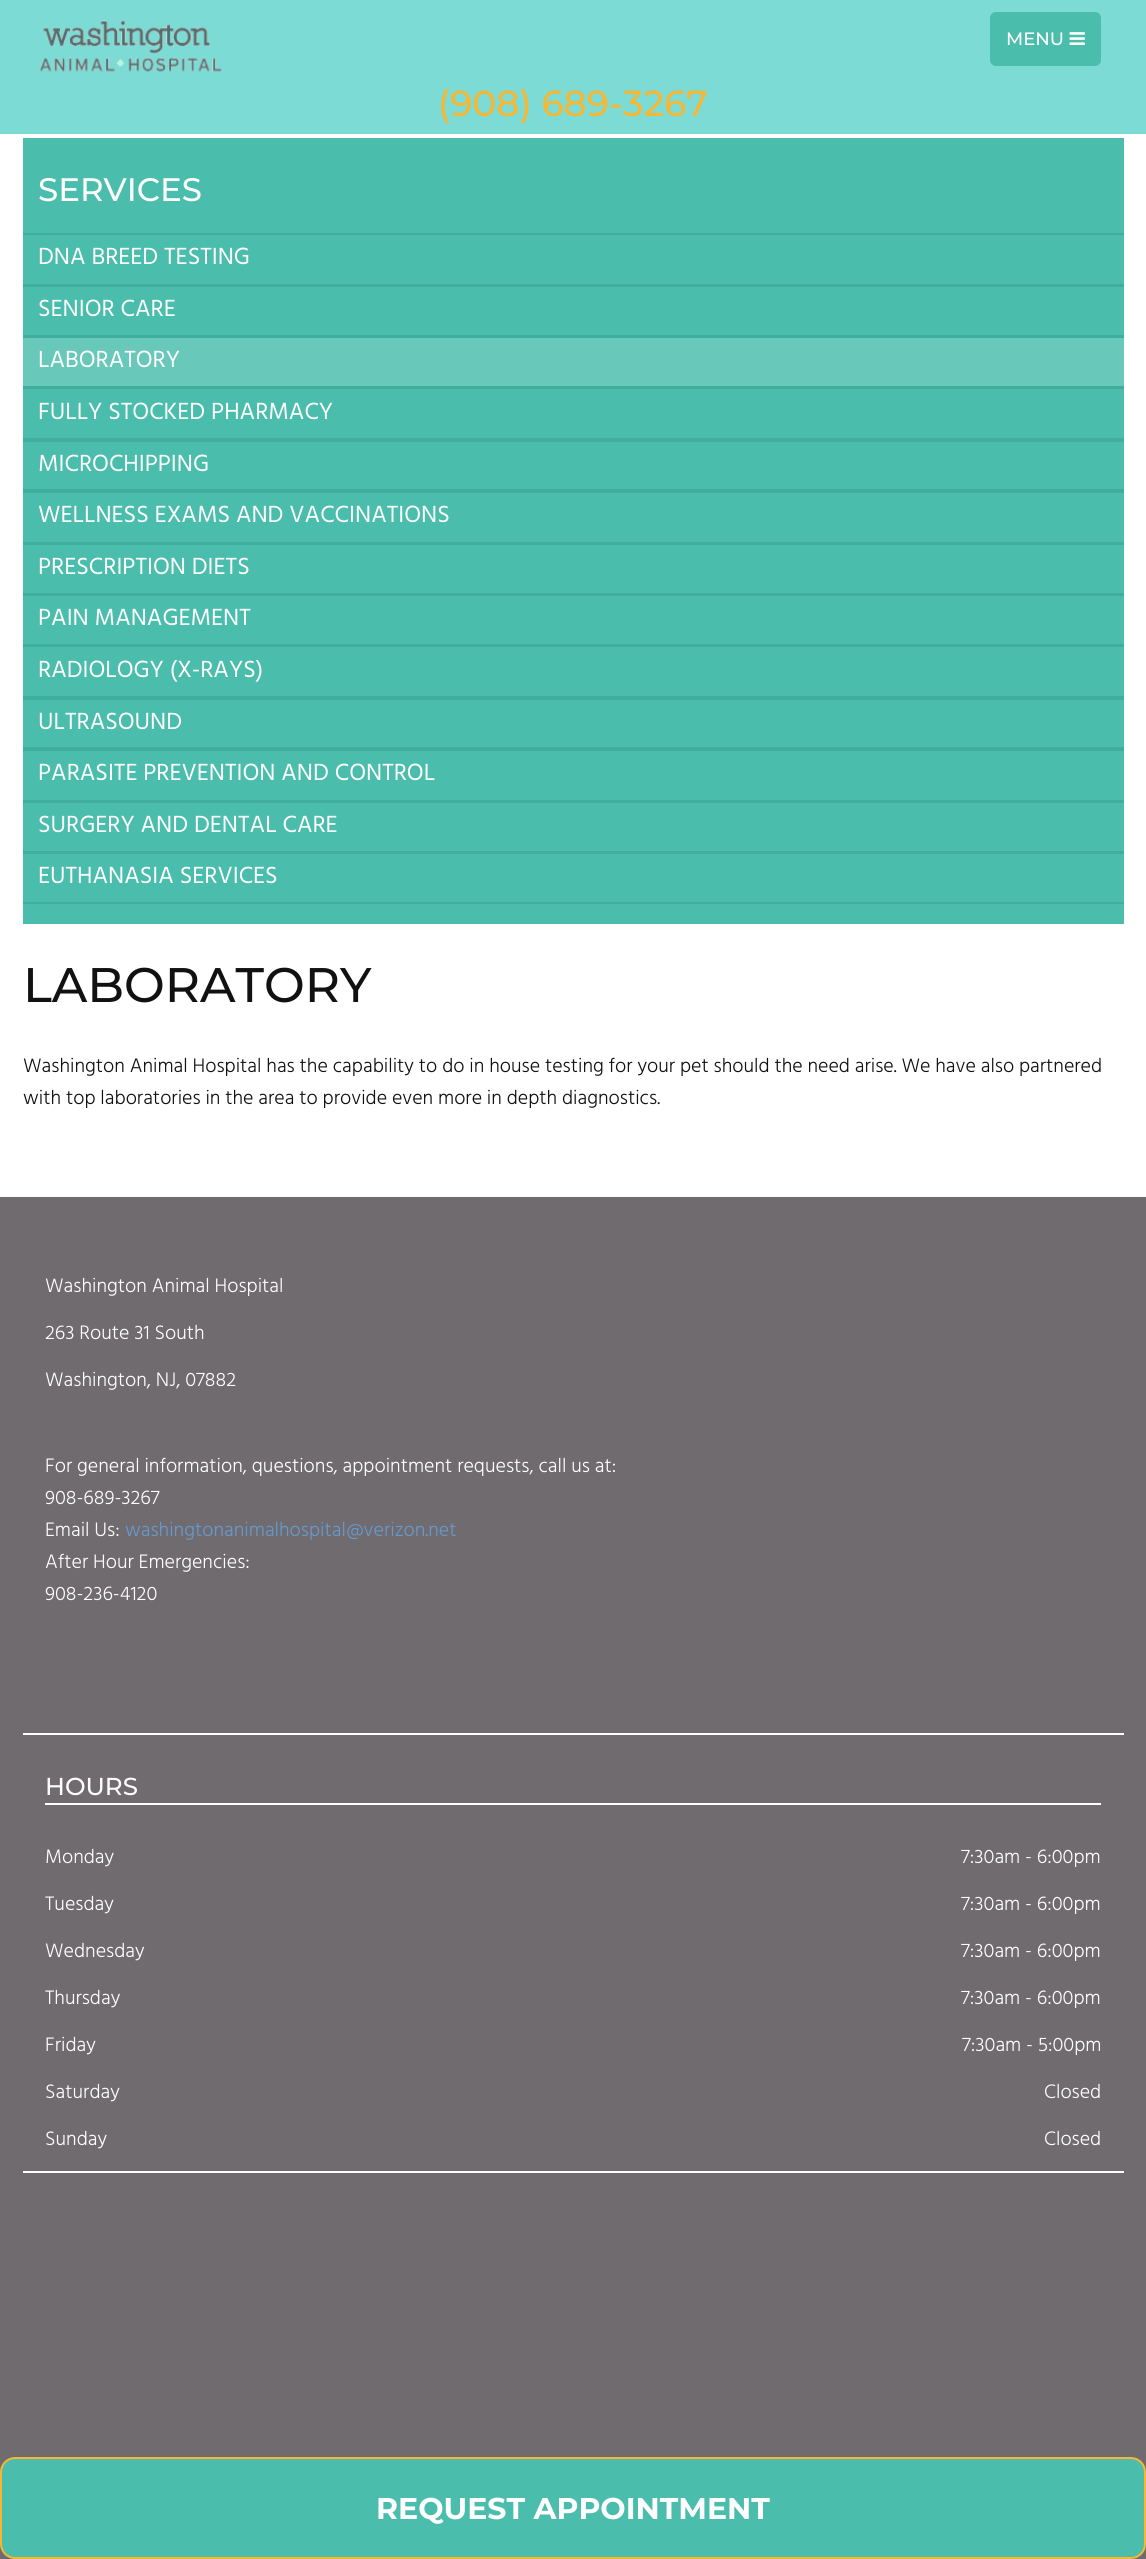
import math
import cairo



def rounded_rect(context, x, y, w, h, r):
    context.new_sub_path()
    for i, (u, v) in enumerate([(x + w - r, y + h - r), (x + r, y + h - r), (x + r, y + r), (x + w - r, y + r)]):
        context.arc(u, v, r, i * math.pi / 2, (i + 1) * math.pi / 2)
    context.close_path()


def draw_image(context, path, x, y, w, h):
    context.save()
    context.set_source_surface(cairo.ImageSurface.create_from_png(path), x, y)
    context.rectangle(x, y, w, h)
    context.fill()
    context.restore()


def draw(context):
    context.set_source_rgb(1, 1, 1)
    context.paint()
    context.set_source_rgb(124 / 255, 219 / 255, 213 / 255)
    context.rectangle(0, 0, 1146, 134)
    context.fill()
    draw_image(context, "images/1.png", 39, 20, 183, 52)
    context.set_source_rgb(74 / 255, 189 / 255, 172 / 255)
    rounded_rect(context, 991, 13, 109, 52, 5)
    context.fill_preserve()
    context.stroke()
    draw_image(context, "images/2.png", 1069, 32, 16, 13)
    context.set_source_rgb(111 / 255, 107 / 255, 111 / 255)
    context.rectangle(0, 1197, 1146, 1362)
    context.fill()
    context.set_source_rgb(74 / 255, 189 / 255, 172 / 255)
    rounded_rect(context, 1, 2458, 1144, 100, 14)
    context.fill_preserve()
    context.set_source_rgb(247 / 255, 183 / 255, 51 / 255)
    context.stroke()
    context.set_source_rgb(74 / 255, 189 / 255, 172 / 255)
    context.rectangle(23, 138, 1101, 786)
    context.fill()
    context.set_source_rgb(63 / 255, 174 / 255, 158 / 255)
    context.rectangle(23, 233, 1101, 2)
    context.fill()
    context.rectangle(23, 284, 1101, 3)
    context.fill()
    context.rectangle(23, 335, 1101, 3)
    context.fill()
    context.set_source_rgb(104 / 255, 200 / 255, 186 / 255)
    context.rectangle(23, 338, 1101, 48)
    context.fill()
    context.set_source_rgb(63 / 255, 174 / 255, 158 / 255)
    context.rectangle(23, 386, 1101, 3)
    context.fill()
    context.rectangle(23, 438, 1101, 4)
    context.fill()
    context.rectangle(23, 489, 1101, 4)
    context.fill()
    context.rectangle(23, 542, 1101, 3)
    context.fill()
    context.rectangle(23, 593, 1101, 3)
    context.fill()
    context.rectangle(23, 644, 1101, 3)
    context.fill()
    context.rectangle(23, 696, 1101, 4)
    context.fill()
    context.rectangle(23, 747, 1101, 4)
    context.fill()
    context.rectangle(23, 800, 1101, 3)
    context.fill()
    context.rectangle(23, 851, 1101, 3)
    context.fill()
    context.rectangle(23, 902, 1101, 2)
    context.fill()
    context.set_source_rgb(1, 1, 1)
    context.rectangle(23, 1733, 1101, 2)
    context.fill()
    context.rectangle(23, 2171, 1101, 2)
    context.fill()
    context.rectangle(45, 1803, 1056, 2)
    context.fill()
    context.select_font_face("Montserrat Medium")
    context.set_font_size(18)
    context.move_to(1006, 45)
    context.show_text("MENU")
    context.set_font_size(36)
    context.set_source_rgb(247 / 255, 183 / 255, 51 / 255)
    context.move_to(438, 116)
    context.show_text("(908) 689-3267")
    context.select_font_face("Montserrat", cairo.FontSlant.NORMAL, cairo.FontWeight.BOLD)
    context.set_font_size(30)
    context.set_source_rgb(1, 1, 1)
    context.move_to(376, 2519)
    context.show_text("REQUEST APPOINTMENT")
    context.select_font_face("Montserrat Medium")
    context.set_font_size(32.5)
    context.move_to(38, 201)
    context.show_text("SERVICES")
    context.select_font_face("Hind")
    context.set_font_size(24)
    context.move_to(38, 264)
    context.show_text("DNA BREED TESTING")
    context.move_to(38, 316)
    context.show_text("SENIOR CARE")
    context.move_to(38, 367)
    context.show_text("LABORATORY")
    context.move_to(38, 419)
    context.show_text("FULLY STOCKED PHARMACY")
    context.move_to(38, 471)
    context.show_text("MICROCHIPPING")
    context.move_to(38, 522)
    context.show_text("WELLNESS EXAMS AND VACCINATIONS")
    context.move_to(38, 574)
    context.show_text("PRESCRIPTION DIETS")
    context.move_to(38, 625)
    context.show_text("PAIN MANAGEMENT")
    context.move_to(38, 677)
    context.show_text("RADIOLOGY (X-RAYS)")
    context.move_to(38, 729)
    context.show_text("ULTRASOUND")
    context.move_to(38, 780)
    context.show_text("PARASITE PREVENTION AND CONTROL")
    context.move_to(38, 832)
    context.show_text("SURGERY AND DENTAL CARE")
    context.move_to(38, 883)
    context.show_text("EUTHANASIA SERVICES")
    context.select_font_face("Montserrat Medium")
    context.set_font_size(48.5)
    context.set_source_rgb(17 / 255, 17 / 255, 17 / 255)
    context.move_to(23, 1002)
    context.show_text("LABORATORY")
    context.select_font_face("Hind Light")
    context.set_font_size(20)
    context.move_to(23, 1072)
    context.show_text("Washington Animal Hospital has the capability to do in house testing for your pet should the need arise. We have also partnered")
    context.move_to(23, 1104)
    context.show_text("with top laboratories in the area to provide even more in depth diagnostics.")
    context.set_source_rgb(1, 1, 1)
    context.move_to(45, 1292)
    context.show_text("Washington Animal Hospital")
    context.move_to(45, 1339)
    context.show_text("263 Route 31 South")
    context.move_to(45, 1386)
    context.show_text("Washington, NJ, 07882")
    context.move_to(45, 1472)
    context.show_text("For general information, questions, appointment requests, call us at:")
    context.move_to(45, 1504)
    context.show_text("908-689-3267")
    context.move_to(45, 1536)
    context.show_text("Email Us:")
    context.set_source_rgb(102 / 255, 153 / 255, 204 / 255)
    context.move_to(125, 1536)
    context.show_text("washingtonanimalhospital@verizon.net")
    context.set_source_rgb(1, 1, 1)
    context.move_to(45, 1568)
    context.show_text("After Hour Emergencies:")
    context.move_to(45, 1600)
    context.show_text("908-236-4120")
    context.select_font_face("Montserrat Medium")
    context.set_font_size(24.5)
    context.move_to(45, 1795)
    context.show_text("HOURS")
    context.select_font_face("Hind Light")
    context.set_font_size(20)
    context.move_to(45, 1863)
    context.show_text("Monday")
    context.move_to(961, 1863)
    context.show_text("7:30am - 6:00pm")
    context.move_to(45, 1910)
    context.show_text("Tuesday")
    context.move_to(961, 1910)
    context.show_text("7:30am - 6:00pm")
    context.move_to(45, 1957)
    context.show_text("Wednesday")
    context.move_to(961, 1957)
    context.show_text("7:30am - 6:00pm")
    context.move_to(45, 2004)
    context.show_text("Thursday")
    context.move_to(961, 2004)
    context.show_text("7:30am - 6:00pm")
    context.move_to(45, 2051)
    context.show_text("Friday")
    context.move_to(962, 2051)
    context.show_text("7:30am - 5:00pm")
    context.move_to(45, 2098)
    context.show_text("Saturday")
    context.move_to(1044, 2098)
    context.show_text("Closed")
    context.move_to(45, 2145)
    context.show_text("Sunday")
    context.move_to(1044, 2145)
    context.show_text("Closed")


surface = cairo.ImageSurface(cairo.Format.RGB24, 1146, 2559)
context = cairo.Context(surface)
options = cairo.FontOptions()
options.set_hint_metrics(cairo.HintMetrics.OFF)
options.set_hint_style(cairo.HintStyle.NONE)
context.set_font_options(options)
context.set_miter_limit(4)
draw(context)
surface.write_to_png("out.png")
